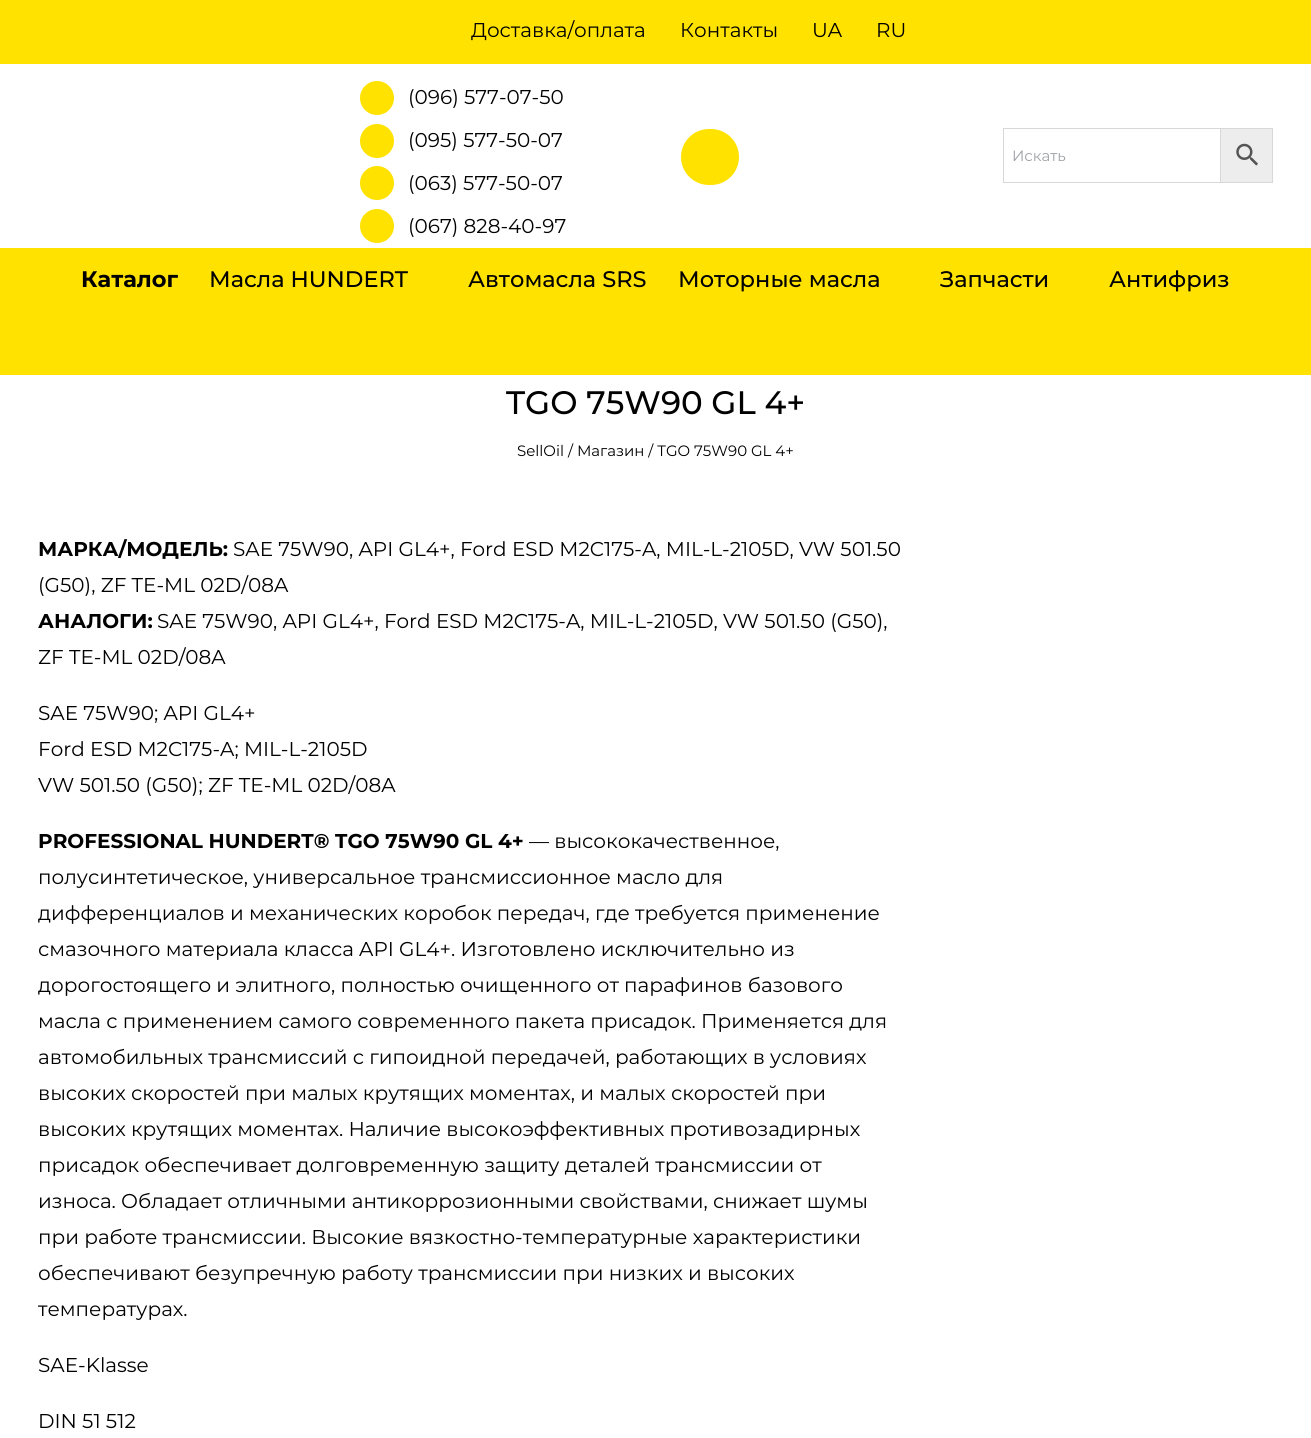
import math
import cairo



def rounded_rect(context, x, y, w, h, r):
    context.new_sub_path()
    for i, (u, v) in enumerate([(x + w - r, y + h - r), (x + r, y + h - r), (x + r, y + r), (x + w - r, y + r)]):
        context.arc(u, v, r, i * math.pi / 2, (i + 1) * math.pi / 2)
    context.close_path()


def draw_image(context, path, x, y, w, h):
    context.save()
    context.set_source_surface(cairo.ImageSurface.create_from_png(path), x, y)
    context.rectangle(x, y, w, h)
    context.fill()
    context.restore()


def draw(context):
    context.set_source_rgb(1, 1, 1)
    context.paint()
    context.set_source_rgb(1, 226 / 255, 0)
    context.rectangle(0, 0, 1311, 64)
    context.fill()
    context.arc(377, 98, 17, 0, 2 * math.pi)
    context.fill()
    context.arc(377, 141, 17, 0, 2 * math.pi)
    context.fill()
    context.arc(377, 183, 17, 0, 2 * math.pi)
    context.fill()
    context.arc(377, 226, 17, 0, 2 * math.pi)
    context.fill()
    rounded_rect(context, 681, 129, 58, 56, 28)
    context.fill()
    context.set_source_rgb(237 / 255, 237 / 255, 237 / 255)
    context.rectangle(1220.5, 128.5, 52, 54)
    context.fill_preserve()
    context.set_source_rgb(216 / 255, 216 / 255, 216 / 255)
    context.set_line_width(1)
    context.stroke()
    context.rectangle(1003.5, 128.5, 217, 54)
    context.stroke()
    draw_image(context, "images/1.png", 1236, 143, 22, 23)
    context.set_source_rgb(1, 226 / 255, 0)
    context.rectangle(0, 248, 1311, 127)
    context.fill()
    context.select_font_face("Montserrat")
    context.set_font_size(20)
    context.set_source_rgb(0, 0, 0)
    context.move_to(471, 37)
    context.show_text("Доставка/оплата")
    context.move_to(680, 37)
    context.show_text("Контакты")
    context.move_to(812, 37)
    context.show_text("UA")
    context.move_to(876, 37)
    context.show_text("RU")
    context.move_to(408, 104)
    context.show_text("(096) 577-07-50")
    context.move_to(408, 147)
    context.show_text("(095) 577-50-07")
    context.move_to(408, 190)
    context.show_text("(063) 577-50-07")
    context.move_to(408, 233)
    context.show_text("(067) 828-40-97")
    context.set_font_size(15)
    context.set_source_rgb(158 / 255, 160 / 255, 164 / 255)
    context.move_to(1012, 161)
    context.show_text("Искать")
    context.select_font_face("Montserrat", cairo.FontSlant.NORMAL, cairo.FontWeight.BOLD)
    context.set_font_size(22.5)
    context.set_source_rgb(0, 0, 0)
    context.move_to(81, 287)
    context.show_text("Каталог")
    context.select_font_face("Montserrat Medium")
    context.move_to(209, 287)
    context.show_text("Масла HUNDERT")
    context.move_to(468, 287)
    context.show_text("Автомасла SRS")
    context.move_to(678, 287)
    context.show_text("Моторные масла")
    context.move_to(940, 287)
    context.show_text("Запчасти")
    context.move_to(1109, 287)
    context.show_text("Антифриз")
    context.set_font_size(32.5)
    context.move_to(506, 414)
    context.show_text("TGO 75W90 GL 4+")
    context.select_font_face("Montserrat")
    context.set_font_size(15)
    context.move_to(517, 456)
    context.show_text("SellOil / Магазин / TGO 75W90 GL 4+")
    context.select_font_face("Montserrat", cairo.FontSlant.NORMAL, cairo.FontWeight.BOLD)
    context.set_font_size(20)
    context.move_to(38, 556)
    context.show_text("МАРКА/МОДЕЛЬ:")
    context.select_font_face("Montserrat")
    context.move_to(233, 556)
    context.show_text("SAE 75W90, API GL4+, Ford ESD M2C175-A, MIL-L-2105D, VW 501.50")
    context.move_to(38, 592)
    context.show_text("(G50), ZF TE-ML 02D/08A")
    context.select_font_face("Montserrat", cairo.FontSlant.NORMAL, cairo.FontWeight.BOLD)
    context.move_to(38, 628)
    context.show_text("АНАЛОГИ:")
    context.select_font_face("Montserrat")
    context.move_to(157, 628)
    context.show_text("SAE 75W90, API GL4+, Ford ESD M2C175-A, MIL-L-2105D, VW 501.50 (G50),")
    context.move_to(38, 664)
    context.show_text("ZF TE-ML 02D/08A")
    context.move_to(38, 720)
    context.show_text("SAE 75W90; API GL4+")
    context.move_to(38, 756)
    context.show_text("Ford ESD M2C175-A; MIL-L-2105D")
    context.move_to(38, 792)
    context.show_text("VW 501.50 (G50); ZF TE-ML 02D/08A")
    context.select_font_face("Montserrat", cairo.FontSlant.NORMAL, cairo.FontWeight.BOLD)
    context.move_to(38, 848)
    context.show_text("PROFESSIONAL HUNDERT® TGO 75W90 GL 4+")
    context.select_font_face("Montserrat")
    context.move_to(529, 848)
    context.show_text("— высококачественное,")
    context.move_to(38, 884)
    context.show_text("полусинтетическое, универсальное трансмиссионное масло для")
    context.move_to(38, 920)
    context.show_text("дифференциалов и механических коробок передач, где требуется применение")
    context.move_to(38, 956)
    context.show_text("смазочного материала класса API GL4+. Изготовлено исключительно из")
    context.move_to(38, 992)
    context.show_text("дорогостоящего и элитного, полностью очищенного от парафинов базового")
    context.move_to(38, 1028)
    context.show_text("масла с применением самого современного пакета присадок. Применяется для")
    context.move_to(38, 1064)
    context.show_text("автомобильных трансмиссий с гипоидной передачей, работающих в условиях")
    context.move_to(38, 1100)
    context.show_text("высоких скоростей при малых крутящих моментах, и малых скоростей при")
    context.move_to(38, 1136)
    context.show_text("высоких крутящих моментах. Наличие высокоэффективных противозадирных")
    context.move_to(38, 1172)
    context.show_text("присадок обеспечивает долговременную защиту деталей трансмиссии от")
    context.move_to(38, 1208)
    context.show_text("износа. Обладает отличными антикоррозионными свойствами, снижает шумы")
    context.move_to(38, 1244)
    context.show_text("при работе трансмиссии. Высокие вязкостно-температурные характеристики")
    context.move_to(38, 1280)
    context.show_text("обеспечивают безупречную работу трансмиссии при низких и высоких")
    context.move_to(38, 1316)
    context.show_text("температурах.")
    context.move_to(38, 1372)
    context.show_text("SAE-Klasse")
    context.move_to(38, 1428)
    context.show_text("DIN 51 512")


surface = cairo.ImageSurface(cairo.Format.RGB24, 1311, 1438)
context = cairo.Context(surface)
options = cairo.FontOptions()
options.set_hint_metrics(cairo.HintMetrics.OFF)
options.set_hint_style(cairo.HintStyle.NONE)
context.set_font_options(options)
context.set_miter_limit(4)
draw(context)
surface.write_to_png("out.png")
